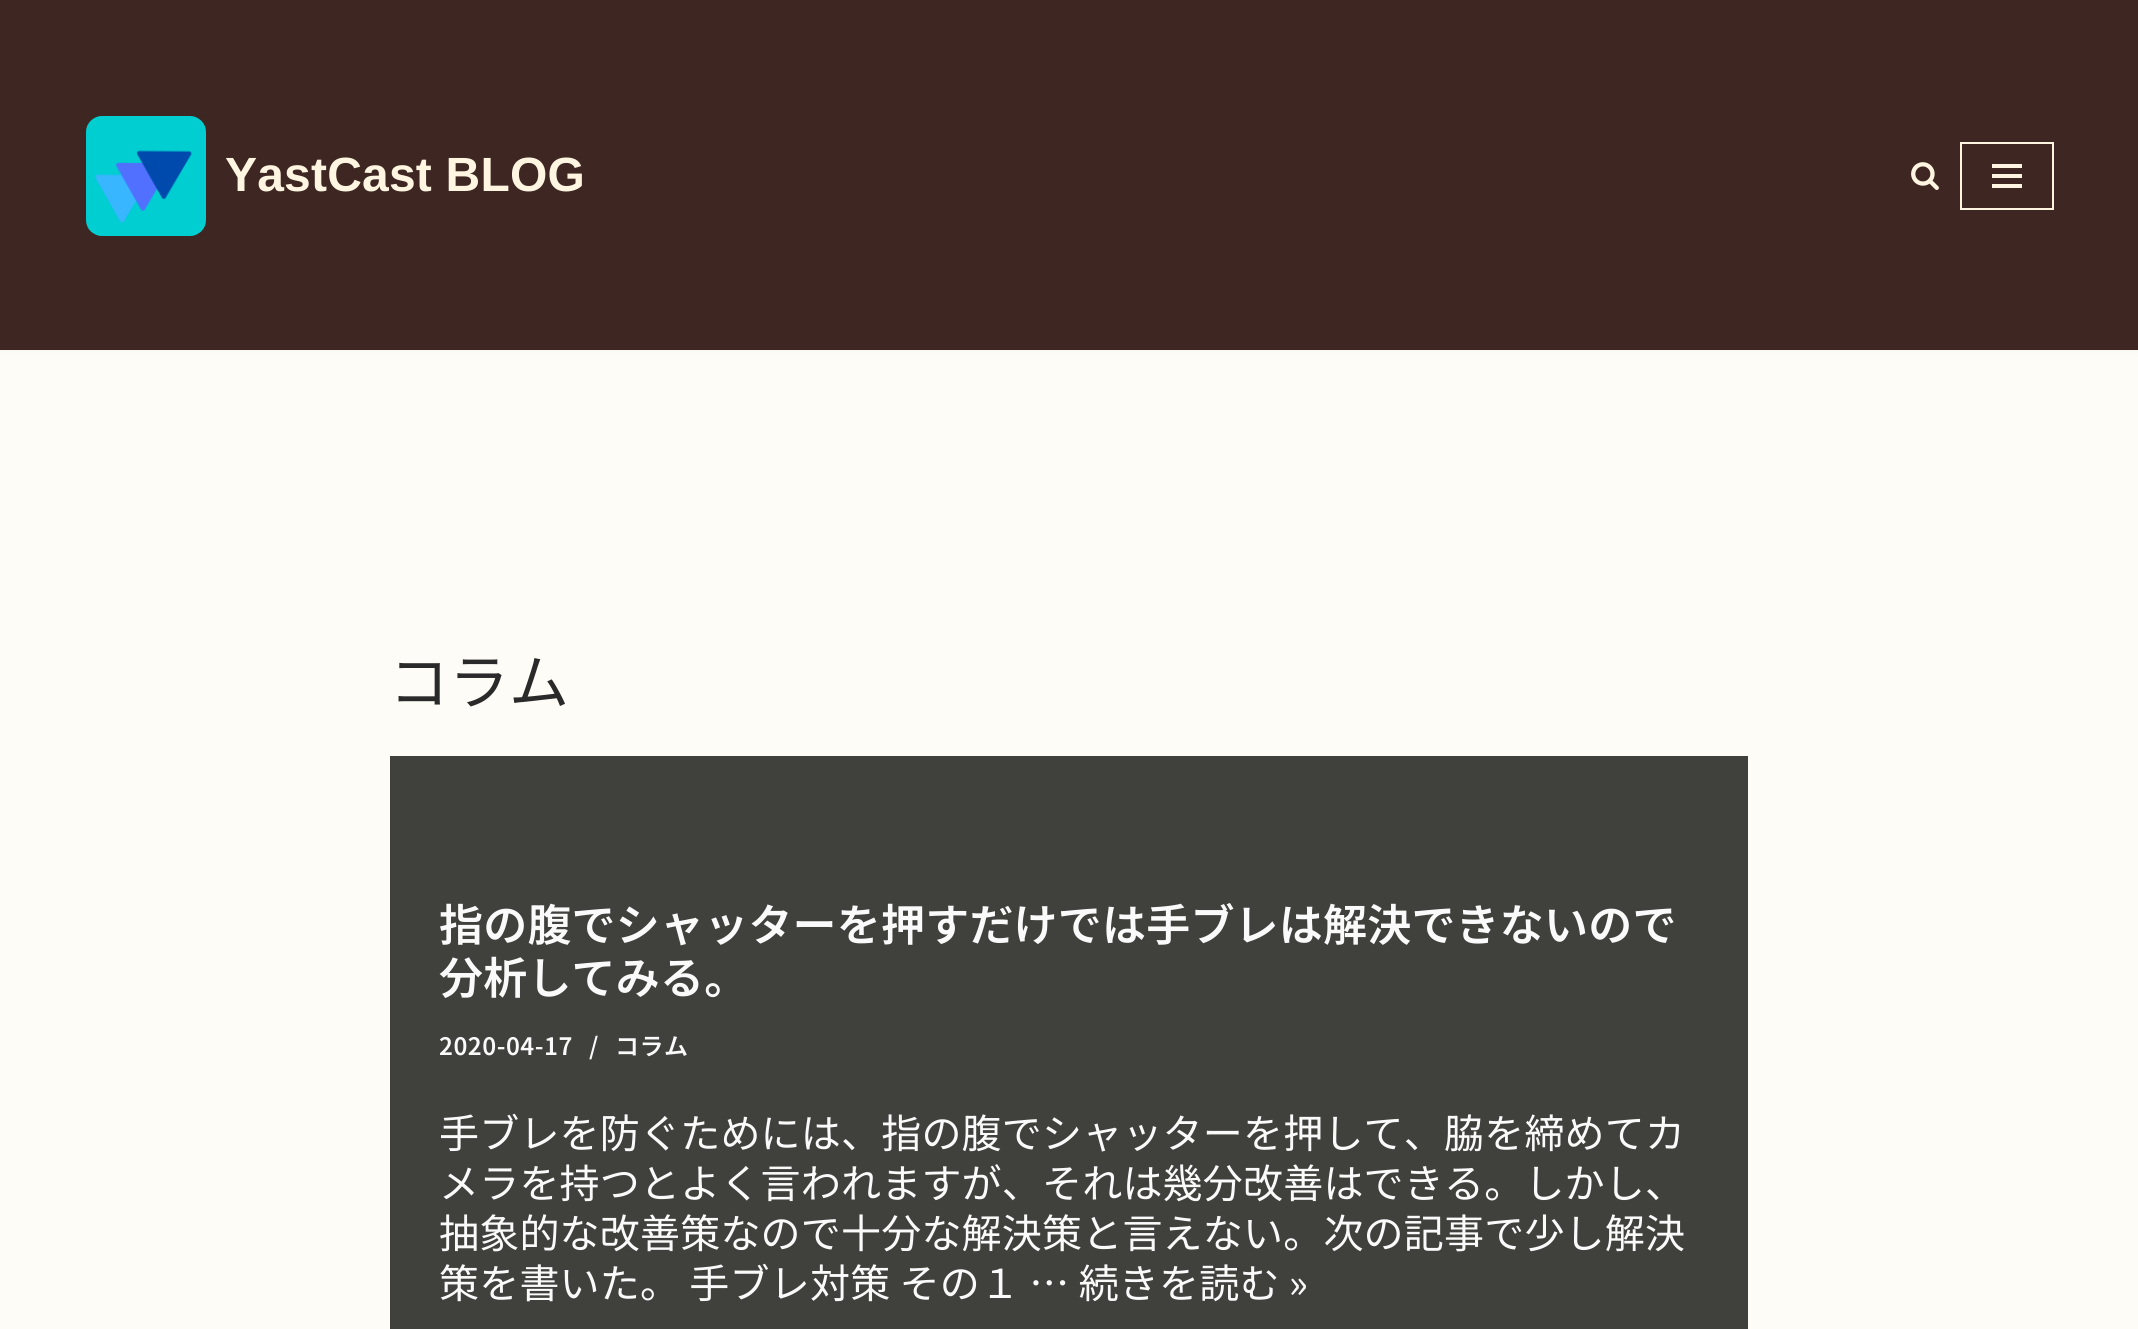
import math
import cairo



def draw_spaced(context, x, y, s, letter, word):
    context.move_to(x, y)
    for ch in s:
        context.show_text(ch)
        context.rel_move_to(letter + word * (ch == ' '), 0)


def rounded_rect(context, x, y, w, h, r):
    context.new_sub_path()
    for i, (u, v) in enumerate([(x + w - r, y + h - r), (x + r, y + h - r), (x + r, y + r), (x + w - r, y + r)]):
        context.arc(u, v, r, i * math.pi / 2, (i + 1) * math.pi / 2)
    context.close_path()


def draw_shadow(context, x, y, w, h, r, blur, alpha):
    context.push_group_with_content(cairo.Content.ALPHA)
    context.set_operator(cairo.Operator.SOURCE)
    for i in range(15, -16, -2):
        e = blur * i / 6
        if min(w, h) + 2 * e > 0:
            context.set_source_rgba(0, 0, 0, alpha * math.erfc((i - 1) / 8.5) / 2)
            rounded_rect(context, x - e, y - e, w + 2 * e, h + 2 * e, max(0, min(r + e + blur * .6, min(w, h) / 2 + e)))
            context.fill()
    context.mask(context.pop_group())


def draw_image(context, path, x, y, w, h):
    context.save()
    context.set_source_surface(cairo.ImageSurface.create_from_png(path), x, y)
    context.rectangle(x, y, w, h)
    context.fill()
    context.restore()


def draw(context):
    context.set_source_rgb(253 / 255, 252 / 255, 246 / 255)
    context.paint()
    context.set_source_rgb(0, 0, 0)
    draw_shadow(context, 0, -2, 2138, 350, 0, 3, 0.1)
    context.set_source_rgb(62 / 255, 39 / 255, 35 / 255)
    context.rectangle(0, 0, 2138, 350)
    context.fill()
    draw_image(context, "images/1.png", 86, 116, 120, 120)
    draw_image(context, "images/2.png", 1911, 162, 28, 28)
    context.rectangle(1961, 143, 92, 66)
    context.set_source_rgb(1, 245 / 255, 225 / 255)
    context.stroke()
    context.rectangle(1992, 164, 30, 4)
    context.fill()
    context.rectangle(1992, 174, 30, 4)
    context.fill()
    context.rectangle(1992, 184, 30, 4)
    context.fill()
    context.set_source_rgb(64 / 255, 64 / 255, 61 / 255)
    context.rectangle(390, 756, 1358, 573)
    context.fill()
    context.select_font_face("Liberation Sans", cairo.FontSlant.NORMAL, cairo.FontWeight.BOLD)
    context.set_font_size(48)
    context.set_source_rgb(1, 245 / 255, 225 / 255)
    draw_spaced(context, 225, 191, "YastCast BLOG", 0.2, 0)
    context.select_font_face("Noto Sans JP")
    context.set_font_size(60)
    context.set_source_rgb(42 / 255, 42 / 255, 42 / 255)
    context.move_to(389, 704)
    context.show_text("コラム")
    context.select_font_face("Noto Sans JP SemiBold")
    context.set_font_size(44)
    context.set_source_rgb(250 / 255, 250 / 255, 250 / 255)
    draw_spaced(context, 439, 941, "指の腹でシャッターを押すだけでは手ブレは解決できないので", 0.2, 0)
    draw_spaced(context, 439, 994, "分析してみる。", 0.2, 0)
    context.set_font_size(24)
    draw_spaced(context, 439, 1055, "2020-04-17", 0.5, 0)
    draw_spaced(context, 589, 1055, "/", 0.5, 0)
    draw_spaced(context, 615, 1055, "コラム", 0.5, 0)
    context.select_font_face("Noto Sans JP")
    context.set_font_size(40)
    draw_spaced(context, 439, 1148, "手ブレを防ぐためには、指の腹でシャッターを押して、脇を締めてカ", 0.2, 0)
    draw_spaced(context, 439, 1198, "メラを持つとよく言われますが、それは幾分改善はできる。しかし、", 0.2, 0)
    draw_spaced(context, 439, 1248, "抽象的な改善策なので十分な解決策と言えない。次の記事で少し解決", 0.2, 0)
    draw_spaced(context, 439, 1298, "策を書いた。 手ブレ対策 その１ … 続きを読む »", 0.2, 0)


surface = cairo.ImageSurface(cairo.Format.RGB24, 2138, 1329)
context = cairo.Context(surface)
options = cairo.FontOptions()
options.set_hint_metrics(cairo.HintMetrics.OFF)
options.set_hint_style(cairo.HintStyle.NONE)
context.set_font_options(options)
context.set_miter_limit(4)
draw(context)
surface.write_to_png("out.png")
